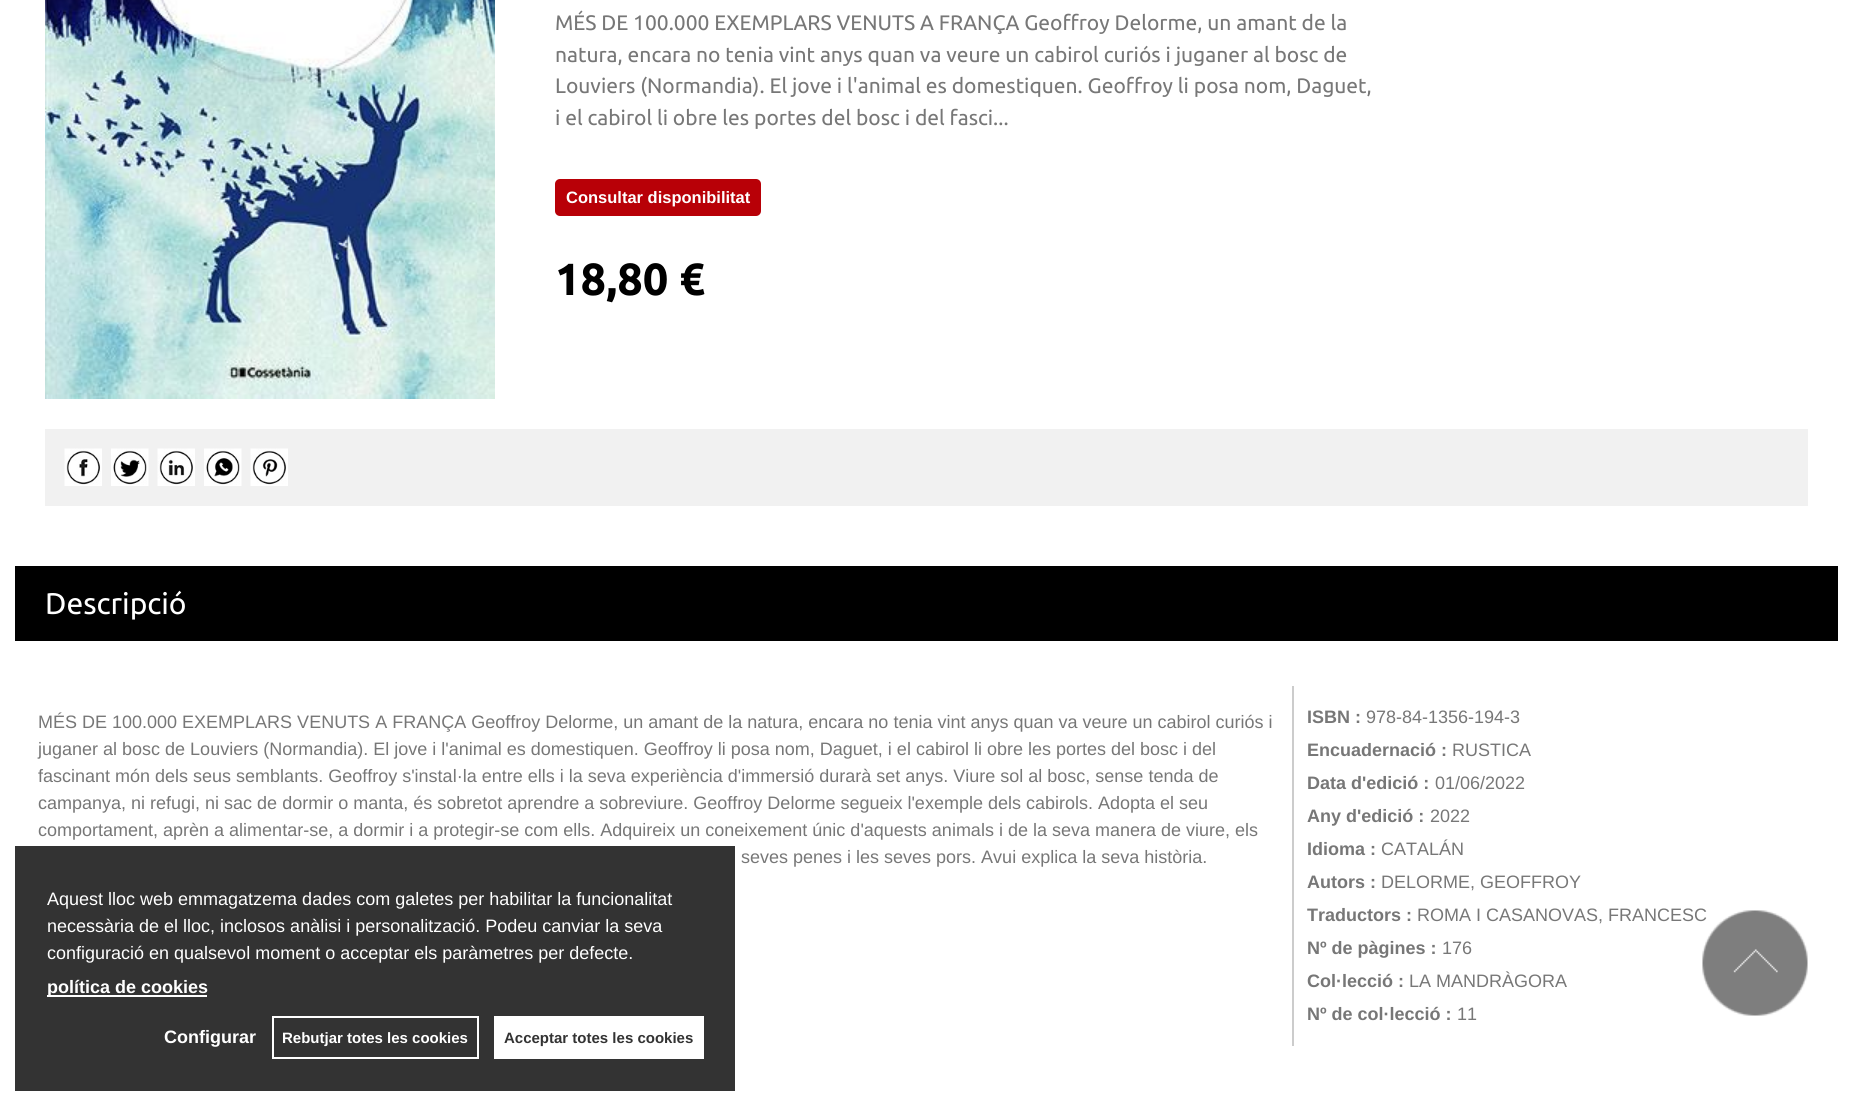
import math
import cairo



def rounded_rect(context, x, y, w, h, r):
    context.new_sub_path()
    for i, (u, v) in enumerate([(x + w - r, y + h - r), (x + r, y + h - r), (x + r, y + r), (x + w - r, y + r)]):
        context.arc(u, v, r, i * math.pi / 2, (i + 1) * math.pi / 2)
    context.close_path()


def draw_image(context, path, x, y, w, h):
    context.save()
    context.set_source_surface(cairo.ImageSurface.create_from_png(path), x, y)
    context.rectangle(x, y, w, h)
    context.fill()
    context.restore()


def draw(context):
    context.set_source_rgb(1, 1, 1)
    context.paint()
    draw_image(context, "images/1.png", 45, 0, 450, 399)
    context.set_source_rgb(184 / 255, 0, 7 / 255)
    rounded_rect(context, 555, 179, 206, 37, 5)
    context.fill()
    context.set_source_rgb(241 / 255, 241 / 255, 241 / 255)
    context.rectangle(45, 429, 1763, 77)
    context.fill()
    draw_image(context, "images/2.png", 64, 448, 38, 38)
    draw_image(context, "images/3.png", 111, 448, 38, 38)
    draw_image(context, "images/4.png", 157, 448, 38, 38)
    draw_image(context, "images/5.png", 204, 448, 38, 38)
    draw_image(context, "images/6.png", 250, 448, 38, 38)
    context.set_source_rgb(0, 0, 0)
    context.rectangle(15, 566, 1823, 75)
    context.fill()
    context.set_source_rgb(204 / 255, 204 / 255, 204 / 255)
    context.rectangle(1292, 686, 2, 360)
    context.fill()
    context.set_source_rgba(0, 0, 0, 0.8)
    context.rectangle(15, 846, 720, 245)
    context.fill()
    context.set_source_rgb(1, 1, 1)
    context.rectangle(47, 995, 160, 2)
    context.fill()
    context.rectangle(273, 1017, 205, 41)
    context.stroke()
    context.rectangle(494, 1016, 210, 43)
    context.fill()
    context.select_font_face("Ubuntu")
    context.set_font_size(21)
    context.set_source_rgb(119 / 255, 119 / 255, 119 / 255)
    context.move_to(555, 30)
    context.show_text("MÉS DE 100.000 EXEMPLARS VENUTS A FRANÇA Geoffroy Delorme, un amant de la")
    context.move_to(555, 62)
    context.show_text("natura, encara no tenia vint anys quan va veure un cabirol curiós i juganer al bosc de")
    context.move_to(555, 93)
    context.show_text("Louviers (Normandia). El jove i l'animal es domestiquen. Geoffroy li posa nom, Daguet,")
    context.move_to(555, 125)
    context.show_text("i el cabirol li obre les portes del bosc i del fasci...")
    context.select_font_face("Liberation Sans", cairo.FontSlant.NORMAL, cairo.FontWeight.BOLD)
    context.set_font_size(16.5)
    context.set_source_rgb(1, 1, 1)
    context.move_to(566, 203)
    context.show_text("Consultar disponibilitat")
    context.select_font_face("Ubuntu", cairo.FontSlant.NORMAL, cairo.FontWeight.BOLD)
    context.set_font_size(45)
    context.set_source_rgb(0, 0, 0)
    context.move_to(555, 295)
    context.show_text("18,80 €")
    context.select_font_face("Ubuntu")
    context.set_font_size(30)
    context.set_source_rgb(1, 1, 1)
    context.move_to(45, 614)
    context.show_text("Descripció")
    context.select_font_face("Liberation Sans")
    context.set_font_size(18)
    context.set_source_rgb(119 / 255, 119 / 255, 119 / 255)
    context.move_to(38, 728)
    context.show_text("MÉS DE 100.000 EXEMPLARS VENUTS A FRANÇA Geoffroy Delorme, un amant de la natura, encara no tenia vint anys quan va veure un cabirol curiós i")
    context.move_to(38, 755)
    context.show_text("juganer al bosc de Louviers (Normandia). El jove i l'animal es domestiquen. Geoffroy li posa nom, Daguet, i el cabirol li obre les portes del bosc i del")
    context.move_to(38, 782)
    context.show_text("fascinant món dels seus semblants. Geoffroy s'instal·la entre ells i la seva experiència d'immersió durarà set anys. Viure sol al bosc, sense tenda de")
    context.move_to(38, 809)
    context.show_text("campanya, ni refugi, ni sac de dormir o manta, és sobretot aprendre a sobreviure. Geoffroy Delorme segueix l'exemple dels cabirols. Adopta el seu")
    context.move_to(38, 836)
    context.show_text("comportament, aprèn a alimentar-se, a dormir i a protegir-se com ells. Adquireix un coneixement únic d'aquests animals i de la seva manera de viure, els")
    context.move_to(741, 863)
    context.show_text("seves penes i les seves pors. Avui explica la seva història.")
    context.select_font_face("Liberation Sans", cairo.FontSlant.NORMAL, cairo.FontWeight.BOLD)
    context.move_to(1307, 723)
    context.show_text("ISBN :")
    context.select_font_face("Liberation Sans")
    context.move_to(1366, 723)
    context.show_text("978-84-1356-194-3")
    context.select_font_face("Liberation Sans", cairo.FontSlant.NORMAL, cairo.FontWeight.BOLD)
    context.move_to(1307, 756)
    context.show_text("Encuadernació :")
    context.select_font_face("Liberation Sans")
    context.move_to(1452, 756)
    context.show_text("RUSTICA")
    context.select_font_face("Liberation Sans", cairo.FontSlant.NORMAL, cairo.FontWeight.BOLD)
    context.move_to(1307, 789)
    context.show_text("Data d'edició :")
    context.select_font_face("Liberation Sans")
    context.move_to(1435, 789)
    context.show_text("01/06/2022")
    context.select_font_face("Liberation Sans", cairo.FontSlant.NORMAL, cairo.FontWeight.BOLD)
    context.move_to(1307, 822)
    context.show_text("Any d'edició :")
    context.select_font_face("Liberation Sans")
    context.move_to(1430, 822)
    context.show_text("2022")
    context.select_font_face("Liberation Sans", cairo.FontSlant.NORMAL, cairo.FontWeight.BOLD)
    context.move_to(1307, 855)
    context.show_text("Idioma :")
    context.select_font_face("Liberation Sans")
    context.move_to(1381, 855)
    context.show_text("CATALÁN")
    context.select_font_face("Liberation Sans", cairo.FontSlant.NORMAL, cairo.FontWeight.BOLD)
    context.move_to(1307, 888)
    context.show_text("Autors :")
    context.select_font_face("Liberation Sans")
    context.move_to(1381, 888)
    context.show_text("DELORME, GEOFFROY")
    context.select_font_face("Liberation Sans", cairo.FontSlant.NORMAL, cairo.FontWeight.BOLD)
    context.move_to(1307, 921)
    context.show_text("Traductors :")
    context.select_font_face("Liberation Sans")
    context.move_to(1417, 921)
    context.show_text("ROMA I CASANOVAS, FRANCESC")
    context.select_font_face("Liberation Sans", cairo.FontSlant.NORMAL, cairo.FontWeight.BOLD)
    context.move_to(1307, 954)
    context.show_text("Nº de pàgines :")
    context.select_font_face("Liberation Sans")
    context.move_to(1442, 954)
    context.show_text("176")
    context.select_font_face("Liberation Sans", cairo.FontSlant.NORMAL, cairo.FontWeight.BOLD)
    context.move_to(1307, 987)
    context.show_text("Col·lecció :")
    context.select_font_face("Liberation Sans")
    context.move_to(1409, 987)
    context.show_text("LA MANDRÀGORA")
    context.select_font_face("Liberation Sans", cairo.FontSlant.NORMAL, cairo.FontWeight.BOLD)
    context.move_to(1307, 1020)
    context.show_text("Nº de col·lecció :")
    context.select_font_face("Liberation Sans")
    context.move_to(1457, 1020)
    context.show_text("11")
    context.set_source_rgb(1, 1, 1)
    context.move_to(47, 905)
    context.show_text("Aquest lloc web emmagatzema dades com galetes per habilitar la funcionalitat")
    context.move_to(47, 932)
    context.show_text("necessària de el lloc, inclosos anàlisi i personalització. Podeu canviar la seva")
    context.move_to(47, 959)
    context.show_text("configuració en qualsevol moment o acceptar els paràmetres per defecte.")
    context.select_font_face("Liberation Sans", cairo.FontSlant.NORMAL, cairo.FontWeight.BOLD)
    context.move_to(47, 993)
    context.show_text("política de cookies")
    context.move_to(164, 1043)
    context.show_text("Configurar")
    context.set_font_size(15)
    context.move_to(282, 1043)
    context.show_text("Rebutjar totes les cookies")
    context.set_source_rgb(51 / 255, 51 / 255, 51 / 255)
    context.move_to(504, 1043)
    context.show_text("Acceptar totes les cookies")
    draw_image(context, "images/7.png", 1702, 910, 106, 106)


surface = cairo.ImageSurface(cairo.Format.RGB24, 1852, 1105)
context = cairo.Context(surface)
options = cairo.FontOptions()
options.set_hint_metrics(cairo.HintMetrics.OFF)
options.set_hint_style(cairo.HintStyle.NONE)
context.set_font_options(options)
context.set_miter_limit(4)
draw(context)
surface.write_to_png("out.png")
